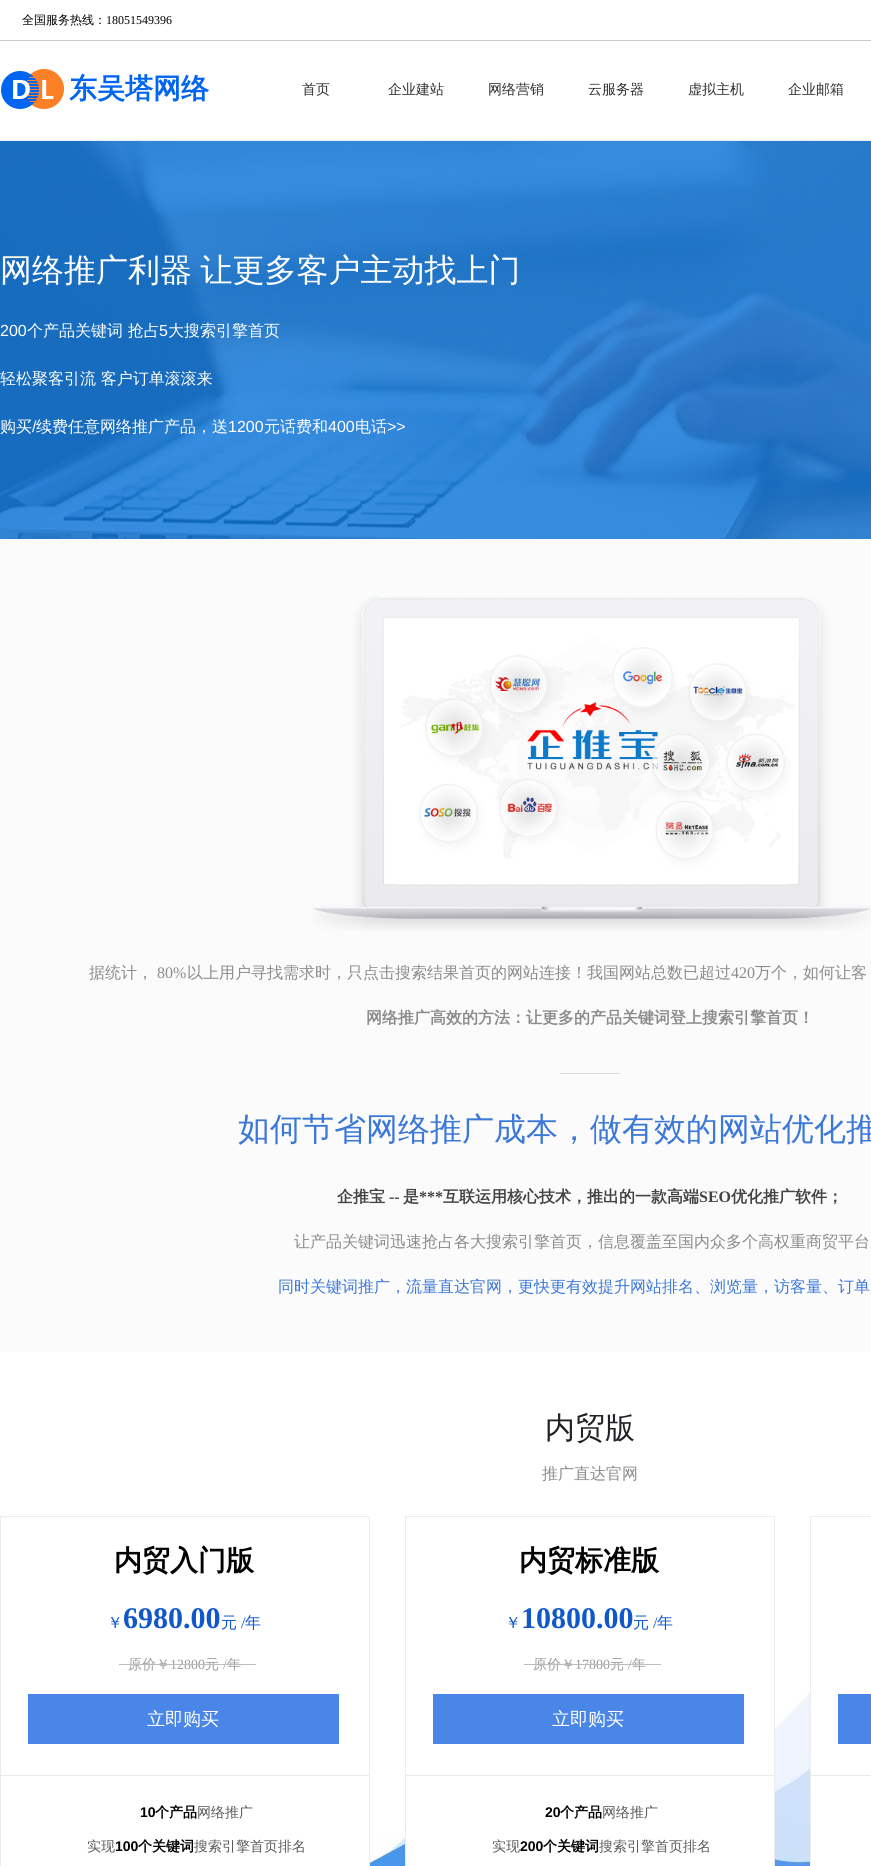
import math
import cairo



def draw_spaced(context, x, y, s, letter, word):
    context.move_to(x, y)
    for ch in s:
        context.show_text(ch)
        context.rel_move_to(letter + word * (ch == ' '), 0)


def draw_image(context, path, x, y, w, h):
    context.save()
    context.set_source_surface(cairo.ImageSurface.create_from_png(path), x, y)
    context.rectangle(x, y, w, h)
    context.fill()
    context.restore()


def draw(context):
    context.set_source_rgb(1, 1, 1)
    context.paint()
    context.set_source_rgb(204 / 255, 204 / 255, 204 / 255)
    context.rectangle(0, 40, 871, 1)
    context.fill()
    draw_image(context, "images/1.png", 1, 69, 63, 40)
    context.set_source_rgb(238 / 255, 238 / 255, 238 / 255)
    context.rectangle(0, 140, 871, 1)
    context.fill()
    draw_image(context, "images/2.png", 0, 141, 871, 398)
    context.set_source_rgb(251 / 255, 251 / 255, 251 / 255)
    context.rectangle(0, 539, 871, 813)
    context.fill()
    draw_image(context, "images/3.png", 312, 596, 559, 335)
    context.set_source_rgb(217 / 255, 217 / 255, 217 / 255)
    context.rectangle(560, 1073, 60, 1)
    context.fill()
    draw_image(context, "images/4.png", 0, 1354, 871, 512)
    context.set_source_rgb(1, 1, 1)
    context.rectangle(356, 1854, 13, 12)
    context.fill()
    context.rectangle(0.5, 1516.5, 369, 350)
    context.set_source_rgb(236 / 255, 236 / 255, 236 / 255)
    context.set_line_width(1)
    context.stroke()
    context.set_source_rgb(74 / 255, 134 / 255, 232 / 255)
    context.rectangle(28, 1694, 311, 50)
    context.fill()
    context.set_source_rgb(234 / 255, 234 / 255, 234 / 255)
    context.rectangle(0, 1775, 370, 1)
    context.fill()
    context.set_source_rgb(1, 1, 1)
    context.rectangle(406, 1689, 368, 177)
    context.fill()
    context.rectangle(405.5, 1516.5, 369, 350)
    context.set_source_rgb(236 / 255, 236 / 255, 236 / 255)
    context.stroke()
    context.set_source_rgb(74 / 255, 134 / 255, 232 / 255)
    context.rectangle(433, 1694, 311, 50)
    context.fill()
    context.set_source_rgb(234 / 255, 234 / 255, 234 / 255)
    context.rectangle(405, 1775, 370, 1)
    context.fill()
    context.set_source_rgb(1, 1, 1)
    context.rectangle(811, 1642, 60, 224)
    context.fill()
    context.rectangle(810.5, 1516.5, 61, 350)
    context.set_source_rgb(236 / 255, 236 / 255, 236 / 255)
    context.stroke()
    context.set_source_rgb(74 / 255, 134 / 255, 232 / 255)
    context.rectangle(838, 1694, 33, 50)
    context.fill()
    context.set_source_rgb(234 / 255, 234 / 255, 234 / 255)
    context.rectangle(810, 1775, 61, 1)
    context.fill()
    context.select_font_face("WenQuanYi Zen Hei Medium")
    context.set_font_size(12)
    context.set_source_rgb(0, 0, 0)
    context.move_to(22, 24)
    context.show_text("全国服务热线：")
    context.select_font_face("Liberation Serif")
    context.move_to(106, 24)
    context.show_text("18051549396")
    context.select_font_face("WenQuanYi Zen Hei", cairo.FontSlant.NORMAL, cairo.FontWeight.BOLD)
    context.set_font_size(28)
    context.set_source_rgb(1 / 255, 101 / 255, 241 / 255)
    context.move_to(69, 98)
    context.show_text("东吴塔网络")
    context.select_font_face("WenQuanYi Zen Hei Medium")
    context.set_font_size(14)
    context.set_source_rgb(48 / 255, 48 / 255, 48 / 255)
    context.move_to(302, 94)
    context.show_text("首页")
    context.move_to(388, 94)
    context.show_text("企业建站")
    context.move_to(488, 94)
    context.show_text("网络营销")
    context.move_to(588, 94)
    context.show_text("云服务器")
    context.move_to(688, 94)
    context.show_text("虚拟主机")
    context.move_to(788, 94)
    context.show_text("企业邮箱")
    context.set_font_size(32)
    context.set_source_rgb(1, 1, 1)
    draw_spaced(context, 0, 281, "网络推广利器 让更多客户主动找上门", 0, -1)
    context.select_font_face("Liberation Sans")
    context.set_font_size(16)
    context.move_to(0, 336)
    context.show_text("200")
    context.select_font_face("WenQuanYi Zen Hei Medium")
    context.move_to(27, 336)
    context.show_text("个产品关键词 抢占")
    context.select_font_face("Liberation Sans")
    context.move_to(159, 336)
    context.show_text("5")
    context.select_font_face("WenQuanYi Zen Hei Medium")
    context.move_to(168, 336)
    context.show_text("大搜索引擎首页")
    context.move_to(0, 384)
    context.show_text("轻松聚客引流 客户订单滚滚来")
    context.move_to(0, 432)
    context.show_text("购买")
    context.select_font_face("Liberation Sans")
    context.move_to(32, 432)
    context.show_text("/")
    context.select_font_face("WenQuanYi Zen Hei Medium")
    context.move_to(36, 432)
    context.show_text("续费任意网络推广产品，送")
    context.select_font_face("Liberation Sans")
    context.move_to(228, 432)
    context.show_text("1200")
    context.select_font_face("WenQuanYi Zen Hei Medium")
    context.move_to(264, 432)
    context.show_text("元话费和")
    context.select_font_face("Liberation Sans")
    context.move_to(328, 432)
    context.show_text("400")
    context.select_font_face("WenQuanYi Zen Hei Medium")
    context.move_to(355, 432)
    context.show_text("电话")
    context.select_font_face("Liberation Sans")
    context.move_to(387, 432)
    context.show_text(">>")
    context.select_font_face("WenQuanYi Zen Hei Medium")
    context.set_source_rgb(139 / 255, 139 / 255, 139 / 255)
    context.move_to(89, 978)
    context.show_text("据统计，")
    context.select_font_face("Liberation Serif")
    context.move_to(157, 978)
    context.show_text("80%")
    context.select_font_face("WenQuanYi Zen Hei Medium")
    context.move_to(187, 978)
    context.show_text("以上用户寻找需求时，只点击搜索结果首页的网站连接！我国网站总数已超过")
    context.select_font_face("Liberation Serif")
    context.move_to(731, 978)
    context.show_text("420")
    context.select_font_face("WenQuanYi Zen Hei Medium")
    context.move_to(755, 978)
    context.show_text("万个，如何让客")
    context.select_font_face("WenQuanYi Zen Hei", cairo.FontSlant.NORMAL, cairo.FontWeight.BOLD)
    context.move_to(366, 1023)
    context.show_text("网络推广高效的方法：让更多的产品关键词登上搜索引擎首页！")
    context.select_font_face("WenQuanYi Zen Hei Medium")
    context.set_font_size(32)
    context.set_source_rgb(60 / 255, 120 / 255, 216 / 255)
    context.move_to(238, 1140)
    context.show_text("如何节省网络推广成本，做有效的网站优化推")
    context.select_font_face("WenQuanYi Zen Hei", cairo.FontSlant.NORMAL, cairo.FontWeight.BOLD)
    context.set_font_size(16)
    context.set_source_rgb(67 / 255, 67 / 255, 67 / 255)
    context.move_to(337, 1202)
    context.show_text("企推宝")
    context.select_font_face("Liberation Serif", cairo.FontSlant.NORMAL, cairo.FontWeight.BOLD)
    context.move_to(389, 1202)
    context.show_text("--")
    context.select_font_face("WenQuanYi Zen Hei", cairo.FontSlant.NORMAL, cairo.FontWeight.BOLD)
    context.move_to(403, 1202)
    context.show_text("是")
    context.select_font_face("Liberation Serif", cairo.FontSlant.NORMAL, cairo.FontWeight.BOLD)
    context.move_to(419, 1202)
    context.show_text("***")
    context.select_font_face("WenQuanYi Zen Hei", cairo.FontSlant.NORMAL, cairo.FontWeight.BOLD)
    context.move_to(443, 1202)
    context.show_text("互联运用核心技术，推出的一款高端")
    context.select_font_face("Liberation Serif", cairo.FontSlant.NORMAL, cairo.FontWeight.BOLD)
    context.move_to(699, 1202)
    context.show_text("SEO")
    context.select_font_face("WenQuanYi Zen Hei", cairo.FontSlant.NORMAL, cairo.FontWeight.BOLD)
    context.move_to(731, 1202)
    context.show_text("优化推广软件；")
    context.select_font_face("WenQuanYi Zen Hei Medium")
    context.set_source_rgb(139 / 255, 139 / 255, 139 / 255)
    context.move_to(294, 1247)
    context.show_text("让产品关键词迅速抢占各大搜索引擎首页，信息覆盖至国内众多个高权重商贸平台")
    context.set_source_rgb(60 / 255, 120 / 255, 216 / 255)
    context.move_to(278, 1292)
    context.show_text("同时关键词推广，流量直达官网，更快更有效提升网站排名、浏览量，访客量、订单")
    context.set_font_size(30)
    context.set_source_rgb(32 / 255, 33 / 255, 36 / 255)
    context.move_to(545, 1438)
    context.show_text("内贸版")
    context.set_font_size(16)
    context.set_source_rgb(139 / 255, 139 / 255, 139 / 255)
    context.move_to(542, 1479)
    context.show_text("推广直达官网")
    context.select_font_face("WenQuanYi Zen Hei", cairo.FontSlant.NORMAL, cairo.FontWeight.BOLD)
    context.set_font_size(28)
    context.set_source_rgb(0, 0, 0)
    context.move_to(114, 1570)
    context.show_text("内贸入门版")
    context.select_font_face("WenQuanYi Zen Hei Medium")
    context.set_font_size(16)
    context.set_source_rgb(15 / 255, 87 / 255, 202 / 255)
    context.move_to(107, 1628)
    context.show_text("￥")
    context.select_font_face("Liberation Serif", cairo.FontSlant.NORMAL, cairo.FontWeight.BOLD)
    context.set_font_size(30)
    context.move_to(123, 1628)
    context.show_text("6980.00")
    context.select_font_face("WenQuanYi Zen Hei Medium")
    context.set_font_size(16)
    context.move_to(221, 1628)
    context.show_text("元")
    context.select_font_face("Liberation Serif")
    context.move_to(241, 1628)
    context.show_text("/")
    context.select_font_face("WenQuanYi Zen Hei Medium")
    context.move_to(245, 1628)
    context.show_text("年")
    context.set_font_size(14)
    context.set_source_rgb(157 / 255, 157 / 255, 157 / 255)
    context.move_to(128, 1669)
    context.show_text("原价￥")
    context.select_font_face("Liberation Serif")
    context.move_to(170, 1669)
    context.show_text("12800")
    context.select_font_face("WenQuanYi Zen Hei Medium")
    context.move_to(205, 1669)
    context.show_text("元")
    context.select_font_face("Liberation Serif")
    context.move_to(223, 1669)
    context.show_text("/")
    context.select_font_face("WenQuanYi Zen Hei Medium")
    context.move_to(227, 1669)
    context.show_text("年")
    context.set_source_rgb(189 / 255, 189 / 255, 189 / 255)
    context.rectangle(119, 1664, 137, 1)
    context.fill()
    context.set_font_size(18)
    context.set_source_rgb(1, 1, 1)
    context.move_to(147, 1725)
    context.show_text("立即购买")
    context.select_font_face("Liberation Sans", cairo.FontSlant.NORMAL, cairo.FontWeight.BOLD)
    context.set_font_size(14)
    context.set_source_rgb(0, 0, 0)
    context.move_to(140, 1817)
    context.show_text("10")
    context.select_font_face("WenQuanYi Zen Hei", cairo.FontSlant.NORMAL, cairo.FontWeight.BOLD)
    context.move_to(155, 1817)
    context.show_text("个产品")
    context.select_font_face("WenQuanYi Zen Hei Medium")
    context.set_source_rgb(90 / 255, 90 / 255, 90 / 255)
    context.move_to(197, 1817)
    context.show_text("网络推广")
    context.move_to(87, 1851)
    context.show_text("实现")
    context.select_font_face("Liberation Sans", cairo.FontSlant.NORMAL, cairo.FontWeight.BOLD)
    context.set_source_rgb(0, 0, 0)
    context.move_to(115, 1851)
    context.show_text("100")
    context.select_font_face("WenQuanYi Zen Hei", cairo.FontSlant.NORMAL, cairo.FontWeight.BOLD)
    context.move_to(138, 1851)
    context.show_text("个关键词")
    context.select_font_face("WenQuanYi Zen Hei Medium")
    context.set_source_rgb(90 / 255, 90 / 255, 90 / 255)
    context.move_to(194, 1851)
    context.show_text("搜索引擎首页排名")
    context.select_font_face("WenQuanYi Zen Hei", cairo.FontSlant.NORMAL, cairo.FontWeight.BOLD)
    context.set_font_size(28)
    context.set_source_rgb(0, 0, 0)
    context.move_to(519, 1570)
    context.show_text("内贸标准版")
    context.select_font_face("WenQuanYi Zen Hei Medium")
    context.set_font_size(16)
    context.set_source_rgb(15 / 255, 87 / 255, 202 / 255)
    context.move_to(505, 1628)
    context.show_text("￥")
    context.select_font_face("Liberation Serif", cairo.FontSlant.NORMAL, cairo.FontWeight.BOLD)
    context.set_font_size(30)
    context.move_to(521, 1628)
    context.show_text("10800.00")
    context.select_font_face("WenQuanYi Zen Hei Medium")
    context.set_font_size(16)
    context.move_to(633, 1628)
    context.show_text("元")
    context.select_font_face("Liberation Serif")
    context.move_to(653, 1628)
    context.show_text("/")
    context.select_font_face("WenQuanYi Zen Hei Medium")
    context.move_to(657, 1628)
    context.show_text("年")
    context.set_font_size(14)
    context.set_source_rgb(157 / 255, 157 / 255, 157 / 255)
    context.move_to(533, 1669)
    context.show_text("原价￥")
    context.select_font_face("Liberation Serif")
    context.move_to(575, 1669)
    context.show_text("17800")
    context.select_font_face("WenQuanYi Zen Hei Medium")
    context.move_to(610, 1669)
    context.show_text("元")
    context.select_font_face("Liberation Serif")
    context.move_to(628, 1669)
    context.show_text("/")
    context.select_font_face("WenQuanYi Zen Hei Medium")
    context.move_to(632, 1669)
    context.show_text("年")
    context.set_source_rgb(189 / 255, 189 / 255, 189 / 255)
    context.rectangle(524, 1664, 137, 1)
    context.fill()
    context.set_font_size(18)
    context.set_source_rgb(1, 1, 1)
    context.move_to(552, 1725)
    context.show_text("立即购买")
    context.select_font_face("Liberation Sans", cairo.FontSlant.NORMAL, cairo.FontWeight.BOLD)
    context.set_font_size(14)
    context.set_source_rgb(0, 0, 0)
    context.move_to(545, 1817)
    context.show_text("20")
    context.select_font_face("WenQuanYi Zen Hei", cairo.FontSlant.NORMAL, cairo.FontWeight.BOLD)
    context.move_to(560, 1817)
    context.show_text("个产品")
    context.select_font_face("WenQuanYi Zen Hei Medium")
    context.set_source_rgb(90 / 255, 90 / 255, 90 / 255)
    context.move_to(602, 1817)
    context.show_text("网络推广")
    context.move_to(492, 1851)
    context.show_text("实现")
    context.select_font_face("Liberation Sans", cairo.FontSlant.NORMAL, cairo.FontWeight.BOLD)
    context.set_source_rgb(0, 0, 0)
    context.move_to(520, 1851)
    context.show_text("200")
    context.select_font_face("WenQuanYi Zen Hei", cairo.FontSlant.NORMAL, cairo.FontWeight.BOLD)
    context.move_to(543, 1851)
    context.show_text("个关键词")
    context.select_font_face("WenQuanYi Zen Hei Medium")
    context.set_source_rgb(90 / 255, 90 / 255, 90 / 255)
    context.move_to(599, 1851)
    context.show_text("搜索引擎首页排名")


surface = cairo.ImageSurface(cairo.Format.RGB24, 871, 1866)
context = cairo.Context(surface)
options = cairo.FontOptions()
options.set_hint_metrics(cairo.HintMetrics.OFF)
options.set_hint_style(cairo.HintStyle.NONE)
context.set_font_options(options)
context.set_miter_limit(4)
draw(context)
surface.write_to_png("out.png")
